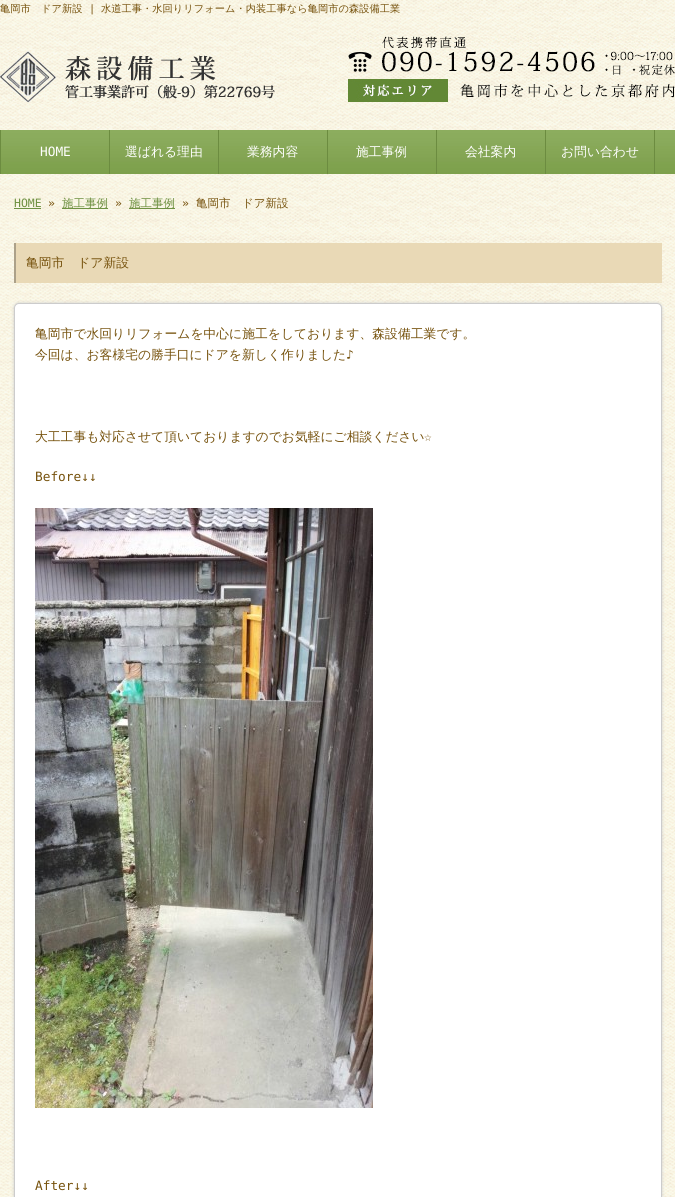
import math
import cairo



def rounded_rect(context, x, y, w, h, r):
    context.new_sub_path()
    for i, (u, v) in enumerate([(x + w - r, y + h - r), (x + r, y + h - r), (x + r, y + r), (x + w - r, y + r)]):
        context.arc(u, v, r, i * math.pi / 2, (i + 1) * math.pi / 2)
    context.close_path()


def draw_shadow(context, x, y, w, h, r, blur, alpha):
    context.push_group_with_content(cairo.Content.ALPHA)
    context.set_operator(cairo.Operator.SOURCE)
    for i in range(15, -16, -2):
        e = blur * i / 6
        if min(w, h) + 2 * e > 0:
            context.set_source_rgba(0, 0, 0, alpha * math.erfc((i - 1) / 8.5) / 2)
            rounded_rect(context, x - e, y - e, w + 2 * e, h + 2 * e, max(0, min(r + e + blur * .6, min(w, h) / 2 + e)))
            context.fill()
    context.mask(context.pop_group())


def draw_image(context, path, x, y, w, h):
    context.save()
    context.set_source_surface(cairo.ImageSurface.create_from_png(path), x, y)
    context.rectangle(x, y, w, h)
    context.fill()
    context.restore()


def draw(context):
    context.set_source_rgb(1, 1, 1)
    context.paint()
    draw_image(context, "images/1.png", 0, 0, 675, 1197)
    draw_image(context, "images/2.png", 0, 51, 275, 52)
    draw_image(context, "images/3.png", 348, 36, 327, 66)
    draw_image(context, "images/4.png", 1, 130, 674, 44)
    context.set_source_rgb(108 / 255, 140 / 255, 64 / 255)
    context.rectangle(0, 130, 1, 44)
    context.fill()
    context.rectangle(109, 130, 1, 44)
    context.fill()
    context.rectangle(218, 130, 1, 44)
    context.fill()
    context.rectangle(327, 130, 1, 44)
    context.fill()
    context.rectangle(436, 130, 1, 44)
    context.fill()
    context.rectangle(654, 130, 1, 44)
    context.fill()
    context.rectangle(545, 130, 1, 44)
    context.fill()
    context.set_source_rgb(111 / 255, 145 / 255, 66 / 255)
    context.rectangle(14, 208, 27, 1)
    context.fill()
    context.rectangle(62, 208, 46, 1)
    context.fill()
    context.rectangle(129, 208, 46, 1)
    context.fill()
    context.set_source_rgb(233 / 255, 217 / 255, 182 / 255)
    context.rectangle(16, 243, 646, 40)
    context.fill()
    context.set_source_rgb(172 / 255, 161 / 255, 137 / 255)
    context.rectangle(14, 243, 2, 40)
    context.fill()
    context.set_source_rgb(204 / 255, 204 / 255, 204 / 255)
    draw_shadow(context, 14, 303, 648, 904, 5, 1.5, 1)
    context.set_source_rgb(1, 1, 1)
    rounded_rect(context, 14.5, 303.5, 647, 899, 4.5)
    context.fill_preserve()
    context.set_source_rgb(204 / 255, 204 / 255, 204 / 255)
    context.set_line_width(1)
    context.stroke()
    draw_image(context, "images/5.png", 35, 508, 338, 600)
    context.select_font_face("WenQuanYi Zen Hei Medium")
    context.set_font_size(10.25)
    context.set_source_rgb(118 / 255, 82 / 255, 13 / 255)
    context.move_to(0, 12)
    context.show_text("亀岡市　ドア新設")
    context.select_font_face("DejaVu Sans Mono")
    context.move_to(89, 12)
    context.show_text("|")
    context.select_font_face("WenQuanYi Zen Hei Medium")
    context.move_to(101, 12)
    context.show_text("水道工事・水回りリフォーム・内装工事なら亀岡市の森設備工業")
    context.select_font_face("DejaVu Sans Mono")
    context.set_font_size(12.8)
    context.set_source_rgb(1, 1, 1)
    context.move_to(40, 156)
    context.show_text("HOME")
    context.select_font_face("WenQuanYi Zen Hei Medium")
    context.move_to(125, 156)
    context.show_text("選ばれる理由")
    context.move_to(247, 156)
    context.show_text("業務内容")
    context.move_to(356, 156)
    context.show_text("施工事例")
    context.move_to(465, 156)
    context.show_text("会社案内")
    context.move_to(561, 156)
    context.show_text("お問い合わせ")
    context.select_font_face("DejaVu Sans Mono")
    context.set_font_size(11.5)
    context.set_source_rgb(111 / 255, 145 / 255, 66 / 255)
    context.move_to(14, 207)
    context.show_text("HOME")
    context.set_source_rgb(118 / 255, 82 / 255, 13 / 255)
    context.move_to(48, 207)
    context.show_text("»")
    context.select_font_face("WenQuanYi Zen Hei Medium")
    context.set_source_rgb(111 / 255, 145 / 255, 66 / 255)
    context.move_to(62, 207)
    context.show_text("施工事例")
    context.select_font_face("DejaVu Sans Mono")
    context.set_source_rgb(118 / 255, 82 / 255, 13 / 255)
    context.move_to(115, 207)
    context.show_text("»")
    context.select_font_face("WenQuanYi Zen Hei Medium")
    context.set_source_rgb(111 / 255, 145 / 255, 66 / 255)
    context.move_to(129, 207)
    context.show_text("施工事例")
    context.select_font_face("DejaVu Sans Mono")
    context.set_source_rgb(118 / 255, 82 / 255, 13 / 255)
    context.move_to(182, 207)
    context.show_text("»")
    context.select_font_face("WenQuanYi Zen Hei Medium")
    context.move_to(196, 207)
    context.show_text("亀岡市　ドア新設")
    context.set_font_size(12.8)
    context.move_to(26, 267)
    context.show_text("亀岡市　ドア新設")
    context.move_to(35, 338)
    context.show_text("亀岡市で水回りリフォームを中心に施工をしております、森設備工業です。")
    context.move_to(35, 359)
    context.show_text("今回は、お客様宅の勝手口にドアを新しく作りました")
    context.select_font_face("DejaVu Sans Mono")
    context.move_to(346, 359)
    context.show_text("♪")
    context.select_font_face("WenQuanYi Zen Hei Medium")
    context.move_to(35, 441)
    context.show_text("大工工事も対応させて頂いておりますのでお気軽にご相談ください")
    context.select_font_face("DejaVu Sans Mono")
    context.move_to(424, 441)
    context.show_text("☆")
    context.move_to(35, 481)
    context.show_text("Before↓↓")
    context.move_to(35, 1190)
    context.show_text("After↓↓")


surface = cairo.ImageSurface(cairo.Format.RGB24, 675, 1197)
context = cairo.Context(surface)
options = cairo.FontOptions()
options.set_hint_metrics(cairo.HintMetrics.OFF)
options.set_hint_style(cairo.HintStyle.NONE)
context.set_font_options(options)
context.set_miter_limit(4)
draw(context)
surface.write_to_png("out.png")
